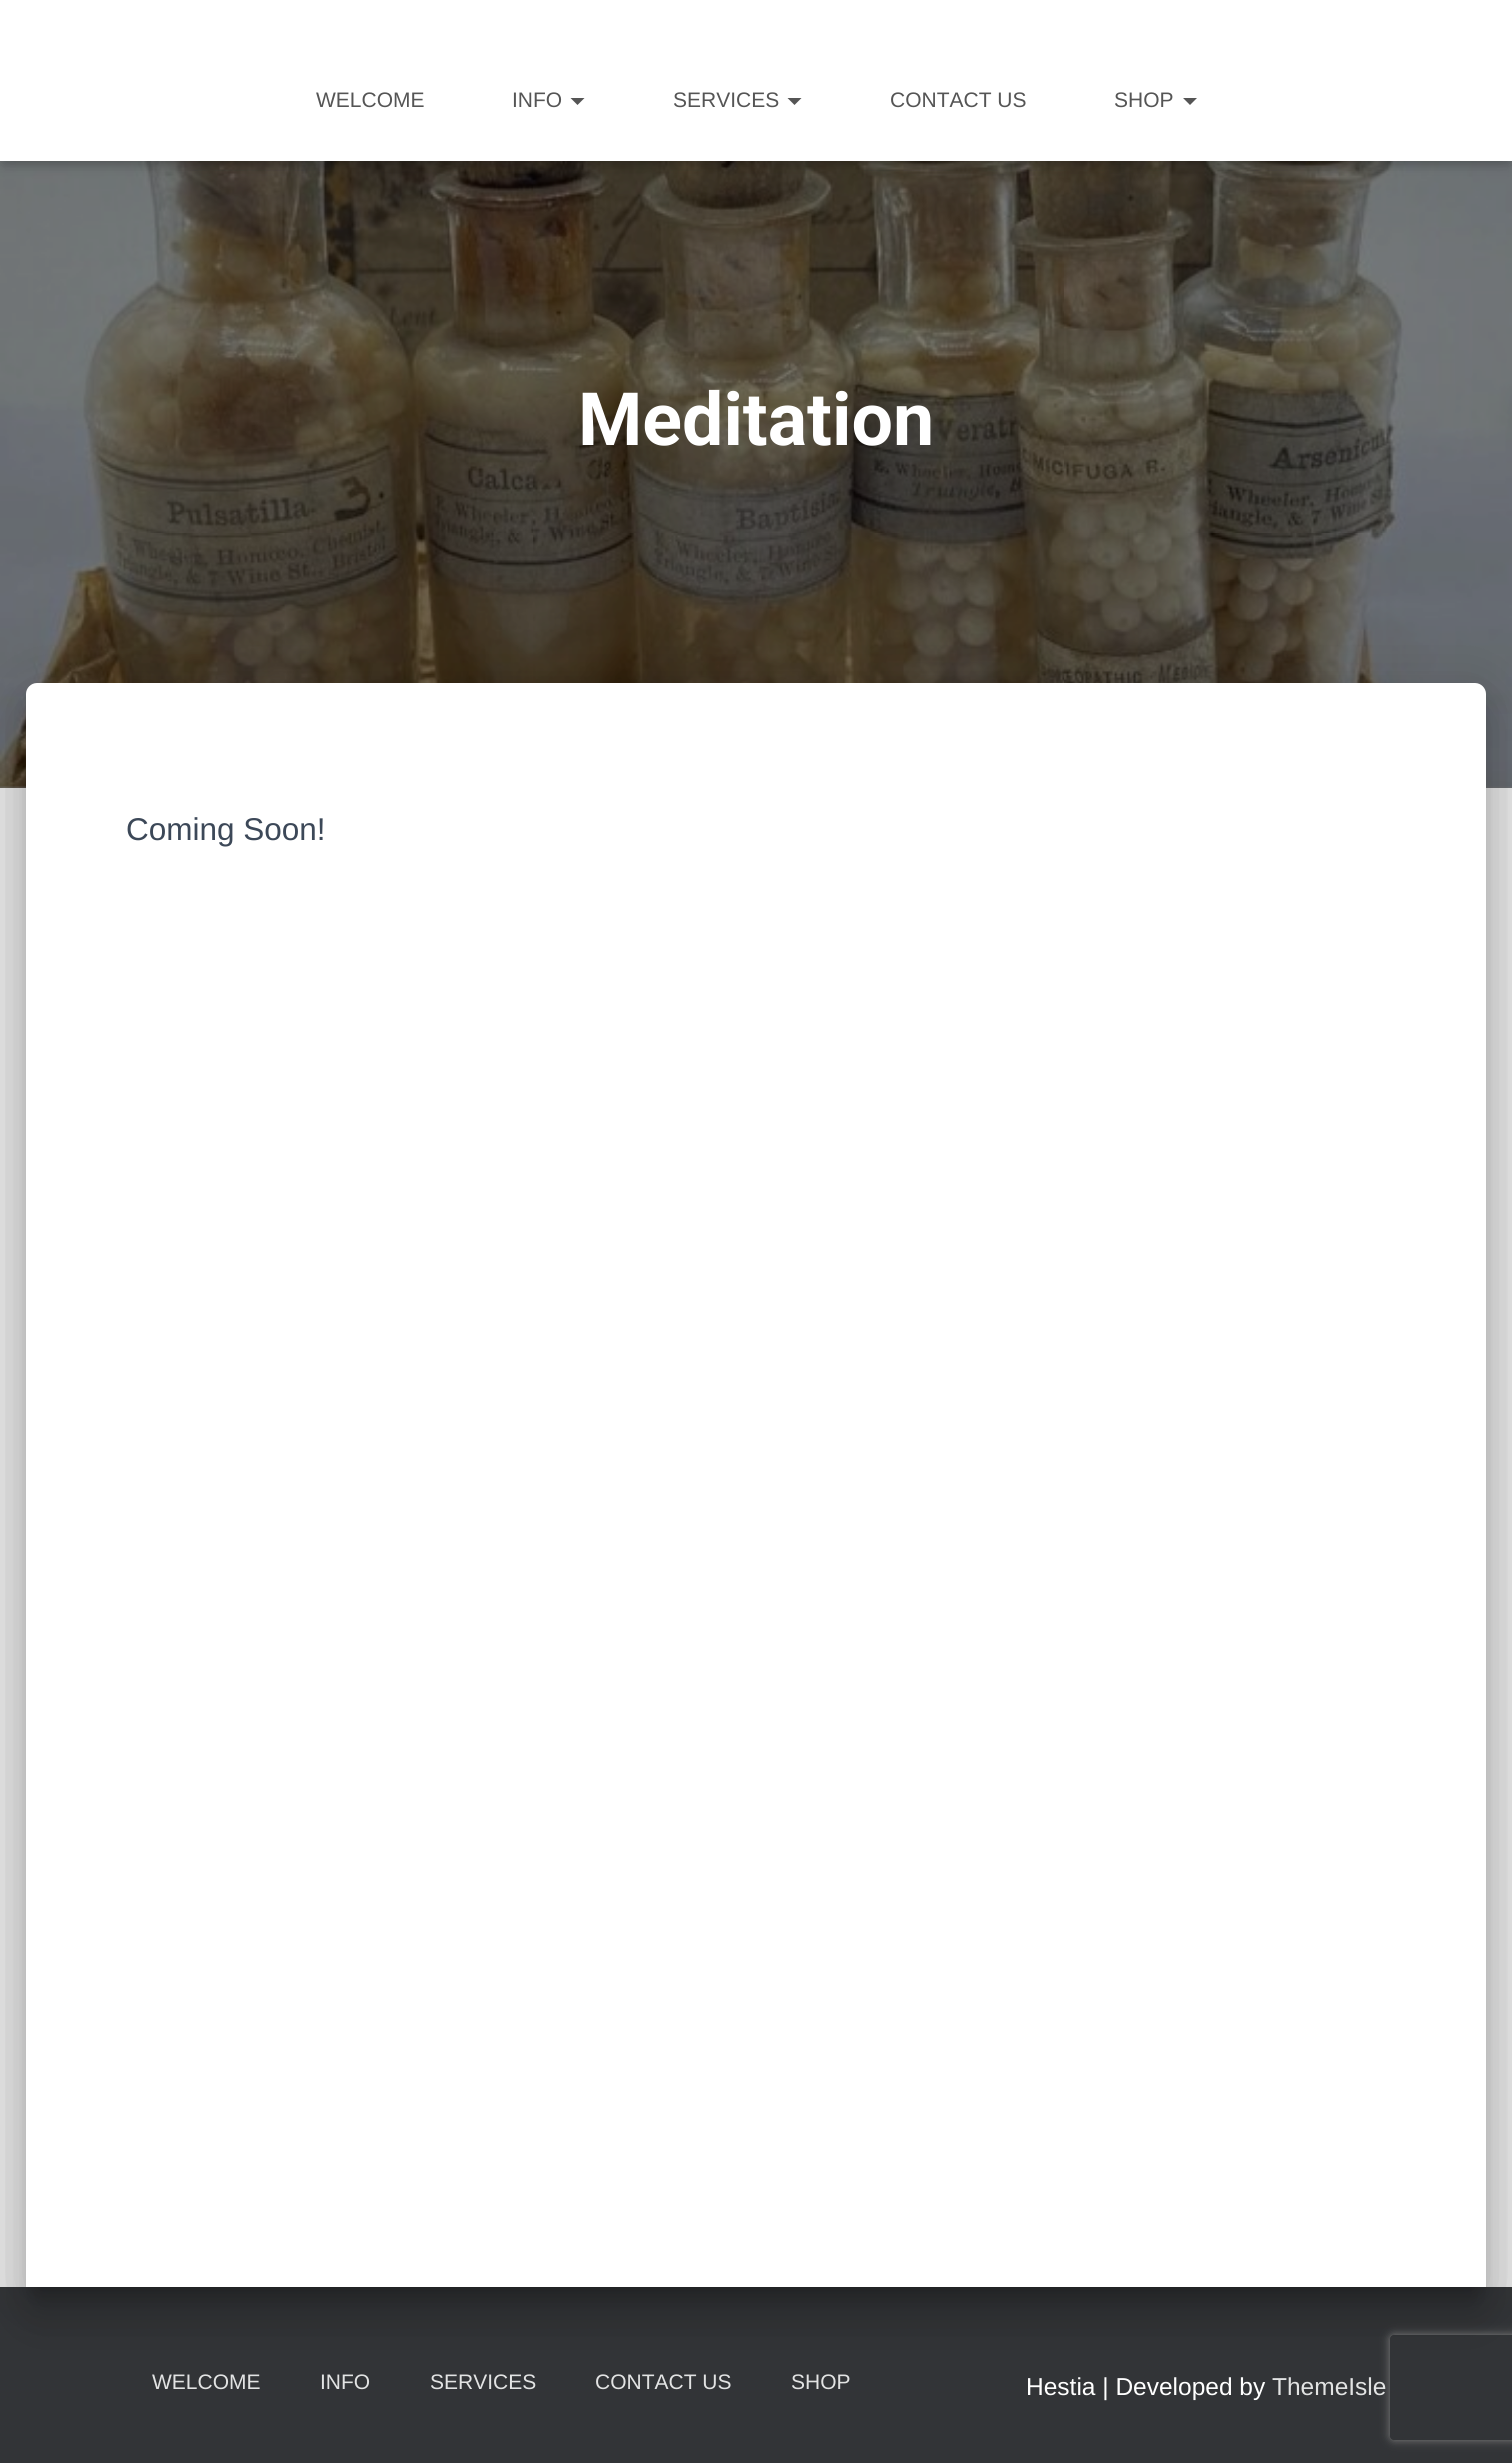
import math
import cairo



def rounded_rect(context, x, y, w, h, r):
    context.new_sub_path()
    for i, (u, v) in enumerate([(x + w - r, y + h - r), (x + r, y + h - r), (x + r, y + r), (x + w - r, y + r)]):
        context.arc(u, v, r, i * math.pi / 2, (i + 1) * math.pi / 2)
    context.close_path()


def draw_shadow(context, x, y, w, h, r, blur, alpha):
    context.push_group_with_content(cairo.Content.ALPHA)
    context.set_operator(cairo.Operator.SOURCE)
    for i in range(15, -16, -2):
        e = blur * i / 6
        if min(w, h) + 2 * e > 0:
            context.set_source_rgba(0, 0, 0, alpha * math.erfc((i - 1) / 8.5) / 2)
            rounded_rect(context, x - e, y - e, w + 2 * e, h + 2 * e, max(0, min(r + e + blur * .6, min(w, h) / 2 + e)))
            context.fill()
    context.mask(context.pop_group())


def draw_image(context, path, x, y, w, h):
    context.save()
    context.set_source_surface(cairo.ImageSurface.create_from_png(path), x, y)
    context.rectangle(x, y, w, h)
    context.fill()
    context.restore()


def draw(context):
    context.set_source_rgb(229 / 255, 229 / 255, 229 / 255)
    context.paint()
    context.set_source_rgb(115 / 255, 115 / 255, 115 / 255)
    context.rectangle(0, 785, 1512, 3)
    context.fill()
    draw_image(context, "images/1.png", 0, 161, 1512, 627)
    context.set_source_rgb(0, 0, 0)
    draw_shadow(context, 4, 11, 1505, 154, 0, 4.5, 0.1)
    draw_shadow(context, 0, 2, 1512, 161, 0, 9, 0.12)
    draw_shadow(context, 11, 12, 1491, 140, 0, 9, 0.42)
    context.set_source_rgb(1, 1, 1)
    context.rectangle(0, 0, 1512, 161)
    context.fill()
    context.set_source_rgb(85 / 255, 85 / 255, 85 / 255)
    context.new_path()
    context.move_to(570.5, 98)
    context.line_to(584.5, 98)
    context.line_to(577.5, 105)
    context.close_path()
    context.fill()
    context.new_path()
    context.move_to(787.5, 98)
    context.line_to(801.5, 98)
    context.line_to(794.5, 105)
    context.close_path()
    context.fill()
    context.new_path()
    context.move_to(1183, 98)
    context.line_to(1197, 98)
    context.line_to(1190, 105)
    context.close_path()
    context.fill()
    context.set_source_rgb(50 / 255, 52 / 255, 55 / 255)
    context.rectangle(0, 2287, 1512, 176)
    context.fill()
    context.set_source_rgb(0, 0, 0)
    draw_shadow(context, 35, 705, 1442, 1588, 2, 9, 0.2)
    draw_shadow(context, 18, 684, 1477, 1623, 19, 26, 0.12)
    draw_shadow(context, 23, 707, 1466, 1612, 14, 21, 0.14)
    context.set_source_rgb(1, 1, 1)
    context.new_path()
    context.move_to(37, 683)
    context.line_to(1475, 683)
    context.curve_to(1481, 683, 1486, 688, 1486, 694)
    context.line_to(1486, 2287)
    context.line_to(26, 2287)
    context.line_to(26, 694)
    context.curve_to(26, 688, 31, 683, 37, 683)
    context.close_path()
    context.fill()
    context.save()
    context.set_fill_rule(cairo.FillRule.EVEN_ODD)
    context.new_path()
    context.move_to(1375, 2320)
    context.line_to(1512, 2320)
    context.line_to(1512, 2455)
    context.line_to(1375, 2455)
    context.close_path()
    context.move_to(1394, 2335)
    context.line_to(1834, 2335)
    context.curve_to(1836, 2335, 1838, 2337, 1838, 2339)
    context.line_to(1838, 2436)
    context.curve_to(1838, 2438, 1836, 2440, 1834, 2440)
    context.line_to(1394, 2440)
    context.curve_to(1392, 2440, 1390, 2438, 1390, 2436)
    context.line_to(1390, 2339)
    context.curve_to(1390, 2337, 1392, 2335, 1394, 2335)
    context.close_path()
    context.clip()
    context.set_source_rgb(128 / 255, 128 / 255, 128 / 255)
    draw_shadow(context, 1390, 2335, 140, 105, 4, 4.5, 1)
    context.restore()
    context.select_font_face("Liberation Sans")
    context.set_font_size(21)
    context.set_source_rgb(85 / 255, 85 / 255, 85 / 255)
    context.move_to(316, 107)
    context.show_text("WELCOME")
    context.move_to(512, 107)
    context.show_text("INFO")
    context.move_to(673, 107)
    context.show_text("SERVICES")
    context.move_to(890, 107)
    context.show_text("CONTACT US")
    context.move_to(1114, 107)
    context.show_text("SHOP")
    context.select_font_face("Roboto", cairo.FontSlant.NORMAL, cairo.FontWeight.BOLD)
    context.set_font_size(73.5)
    context.set_source_rgb(1, 1, 1)
    context.move_to(578, 445)
    context.show_text("Meditation")
    context.select_font_face("Liberation Sans")
    context.set_font_size(31.5)
    context.set_source_rgb(60 / 255, 72 / 255, 88 / 255)
    context.move_to(126, 840)
    context.show_text("Coming Soon!")
    context.set_font_size(21)
    context.set_source_rgb(226 / 255, 227 / 255, 227 / 255)
    context.move_to(152, 2389)
    context.show_text("WELCOME")
    context.move_to(320, 2389)
    context.show_text("INFO")
    context.move_to(430, 2389)
    context.show_text("SERVICES")
    context.move_to(595, 2389)
    context.show_text("CONTACT US")
    context.move_to(791, 2389)
    context.show_text("SHOP")
    context.set_font_size(24.5)
    context.set_source_rgb(1, 1, 1)
    context.move_to(1026, 2395)
    context.show_text("Hestia | Developed by")
    context.set_source_rgb(226 / 255, 227 / 255, 227 / 255)
    context.move_to(1272, 2395)
    context.show_text("ThemeIsle")


surface = cairo.ImageSurface(cairo.Format.RGB24, 1512, 2463)
context = cairo.Context(surface)
options = cairo.FontOptions()
options.set_hint_metrics(cairo.HintMetrics.OFF)
options.set_hint_style(cairo.HintStyle.NONE)
context.set_font_options(options)
context.set_miter_limit(4)
draw(context)
surface.write_to_png("out.png")
